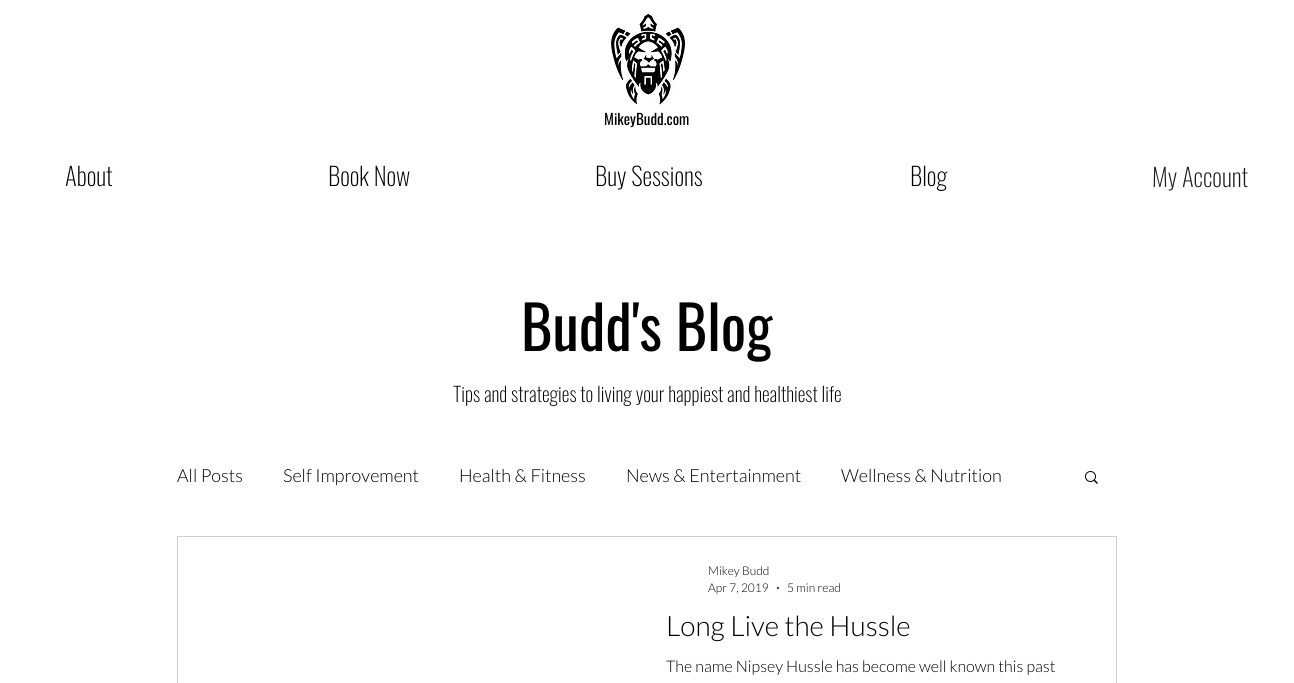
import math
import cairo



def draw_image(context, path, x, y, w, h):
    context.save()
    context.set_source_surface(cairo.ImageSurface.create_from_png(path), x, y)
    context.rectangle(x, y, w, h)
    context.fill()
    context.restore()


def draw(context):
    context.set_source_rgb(1, 1, 1)
    context.paint()
    draw_image(context, "images/1.png", 610, 12, 76, 94)
    draw_image(context, "images/2.png", 1085, 471, 13, 13)
    context.rectangle(177.5, 536.5, 939, 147)
    context.set_source_rgb(207 / 255, 207 / 255, 207 / 255)
    context.set_line_width(1)
    context.stroke()
    context.set_source_rgb(0, 0, 0)
    context.arc(778, 588, 1, 0, 2 * math.pi)
    context.fill()
    context.select_font_face("Oswald")
    context.set_font_size(15)
    context.move_to(604, 125)
    context.show_text("MikeyBudd.com")
    context.select_font_face("Oswald ExtraLight")
    context.set_font_size(25)
    context.move_to(65, 186)
    context.show_text("About")
    context.move_to(328, 186)
    context.show_text("Book Now")
    context.move_to(595, 186)
    context.show_text("Buy Sessions")
    context.move_to(910, 186)
    context.show_text("Blog")
    context.set_source_rgb(25 / 255, 25 / 255, 25 / 255)
    context.move_to(1152, 187)
    context.show_text("My Account")
    context.select_font_face("Oswald")
    context.set_font_size(60)
    context.set_source_rgb(0, 0, 0)
    context.move_to(521, 351)
    context.show_text("Budd's Blog")
    context.select_font_face("Oswald ExtraLight")
    context.set_font_size(20)
    context.move_to(453, 402)
    context.show_text("Tips and strategies to living your happiest and healthiest life")
    context.select_font_face("Lato Light")
    context.set_font_size(18)
    context.move_to(177, 482)
    context.show_text("All Posts")
    context.move_to(283, 482)
    context.show_text("Self Improvement")
    context.move_to(459, 482)
    context.show_text("Health & Fitness")
    context.move_to(626, 482)
    context.show_text("News & Entertainment")
    context.move_to(841, 482)
    context.show_text("Wellness & Nutrition")
    context.set_font_size(12)
    context.move_to(708, 575)
    context.show_text("Mikey Budd")
    context.move_to(708, 592)
    context.show_text("Apr 7, 2019")
    context.move_to(787, 592)
    context.show_text("5 min read")
    context.set_font_size(28)
    context.move_to(666, 636)
    context.show_text("Long Live the Hussle")
    context.set_font_size(16)
    context.move_to(666, 672)
    context.show_text("The name Nipsey Hussle has become well known this past")


surface = cairo.ImageSurface(cairo.Format.RGB24, 1294, 683)
context = cairo.Context(surface)
options = cairo.FontOptions()
options.set_hint_metrics(cairo.HintMetrics.OFF)
options.set_hint_style(cairo.HintStyle.NONE)
context.set_font_options(options)
context.set_miter_limit(4)
draw(context)
surface.write_to_png("out.png")
